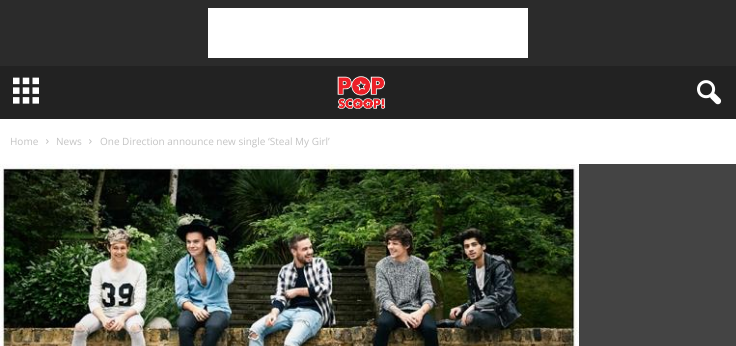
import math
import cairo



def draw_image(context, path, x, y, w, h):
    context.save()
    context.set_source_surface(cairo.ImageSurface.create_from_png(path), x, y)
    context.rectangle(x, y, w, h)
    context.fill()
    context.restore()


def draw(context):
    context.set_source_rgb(43 / 255, 43 / 255, 43 / 255)
    context.paint()
    context.set_source_rgb(1, 1, 1)
    context.rectangle(208, 8, 320, 50)
    context.fill()
    context.set_source_rgb(34 / 255, 34 / 255, 34 / 255)
    context.rectangle(0, 66, 736, 53)
    context.fill()
    draw_image(context, "images/1.png", 13, 77, 26, 27)
    draw_image(context, "images/2.png", 337, 76, 49, 33)
    draw_image(context, "images/3.png", 697, 80, 25, 25)
    context.set_source_rgb(1, 1, 1)
    context.rectangle(0, 119, 736, 45)
    context.fill()
    draw_image(context, "images/4.png", 46, 139, 3, 5)
    draw_image(context, "images/4.png", 89, 139, 3, 5)
    context.set_source_rgb(68 / 255, 68 / 255, 68 / 255)
    context.rectangle(579, 164, 157, 182)
    context.fill()
    draw_image(context, "images/5.png", 0, 164, 579, 182)
    context.select_font_face("Open Sans")
    context.set_font_size(10)
    context.set_source_rgb(195 / 255, 195 / 255, 195 / 255)
    context.move_to(10, 145)
    context.show_text("Home")
    context.move_to(56, 145)
    context.show_text("News")
    context.move_to(100, 145)
    context.show_text("One Direction announce new single ‘Steal My Girl’")


surface = cairo.ImageSurface(cairo.Format.RGB24, 736, 346)
context = cairo.Context(surface)
options = cairo.FontOptions()
options.set_hint_metrics(cairo.HintMetrics.OFF)
options.set_hint_style(cairo.HintStyle.NONE)
context.set_font_options(options)
context.set_miter_limit(4)
draw(context)
surface.write_to_png("out.png")
